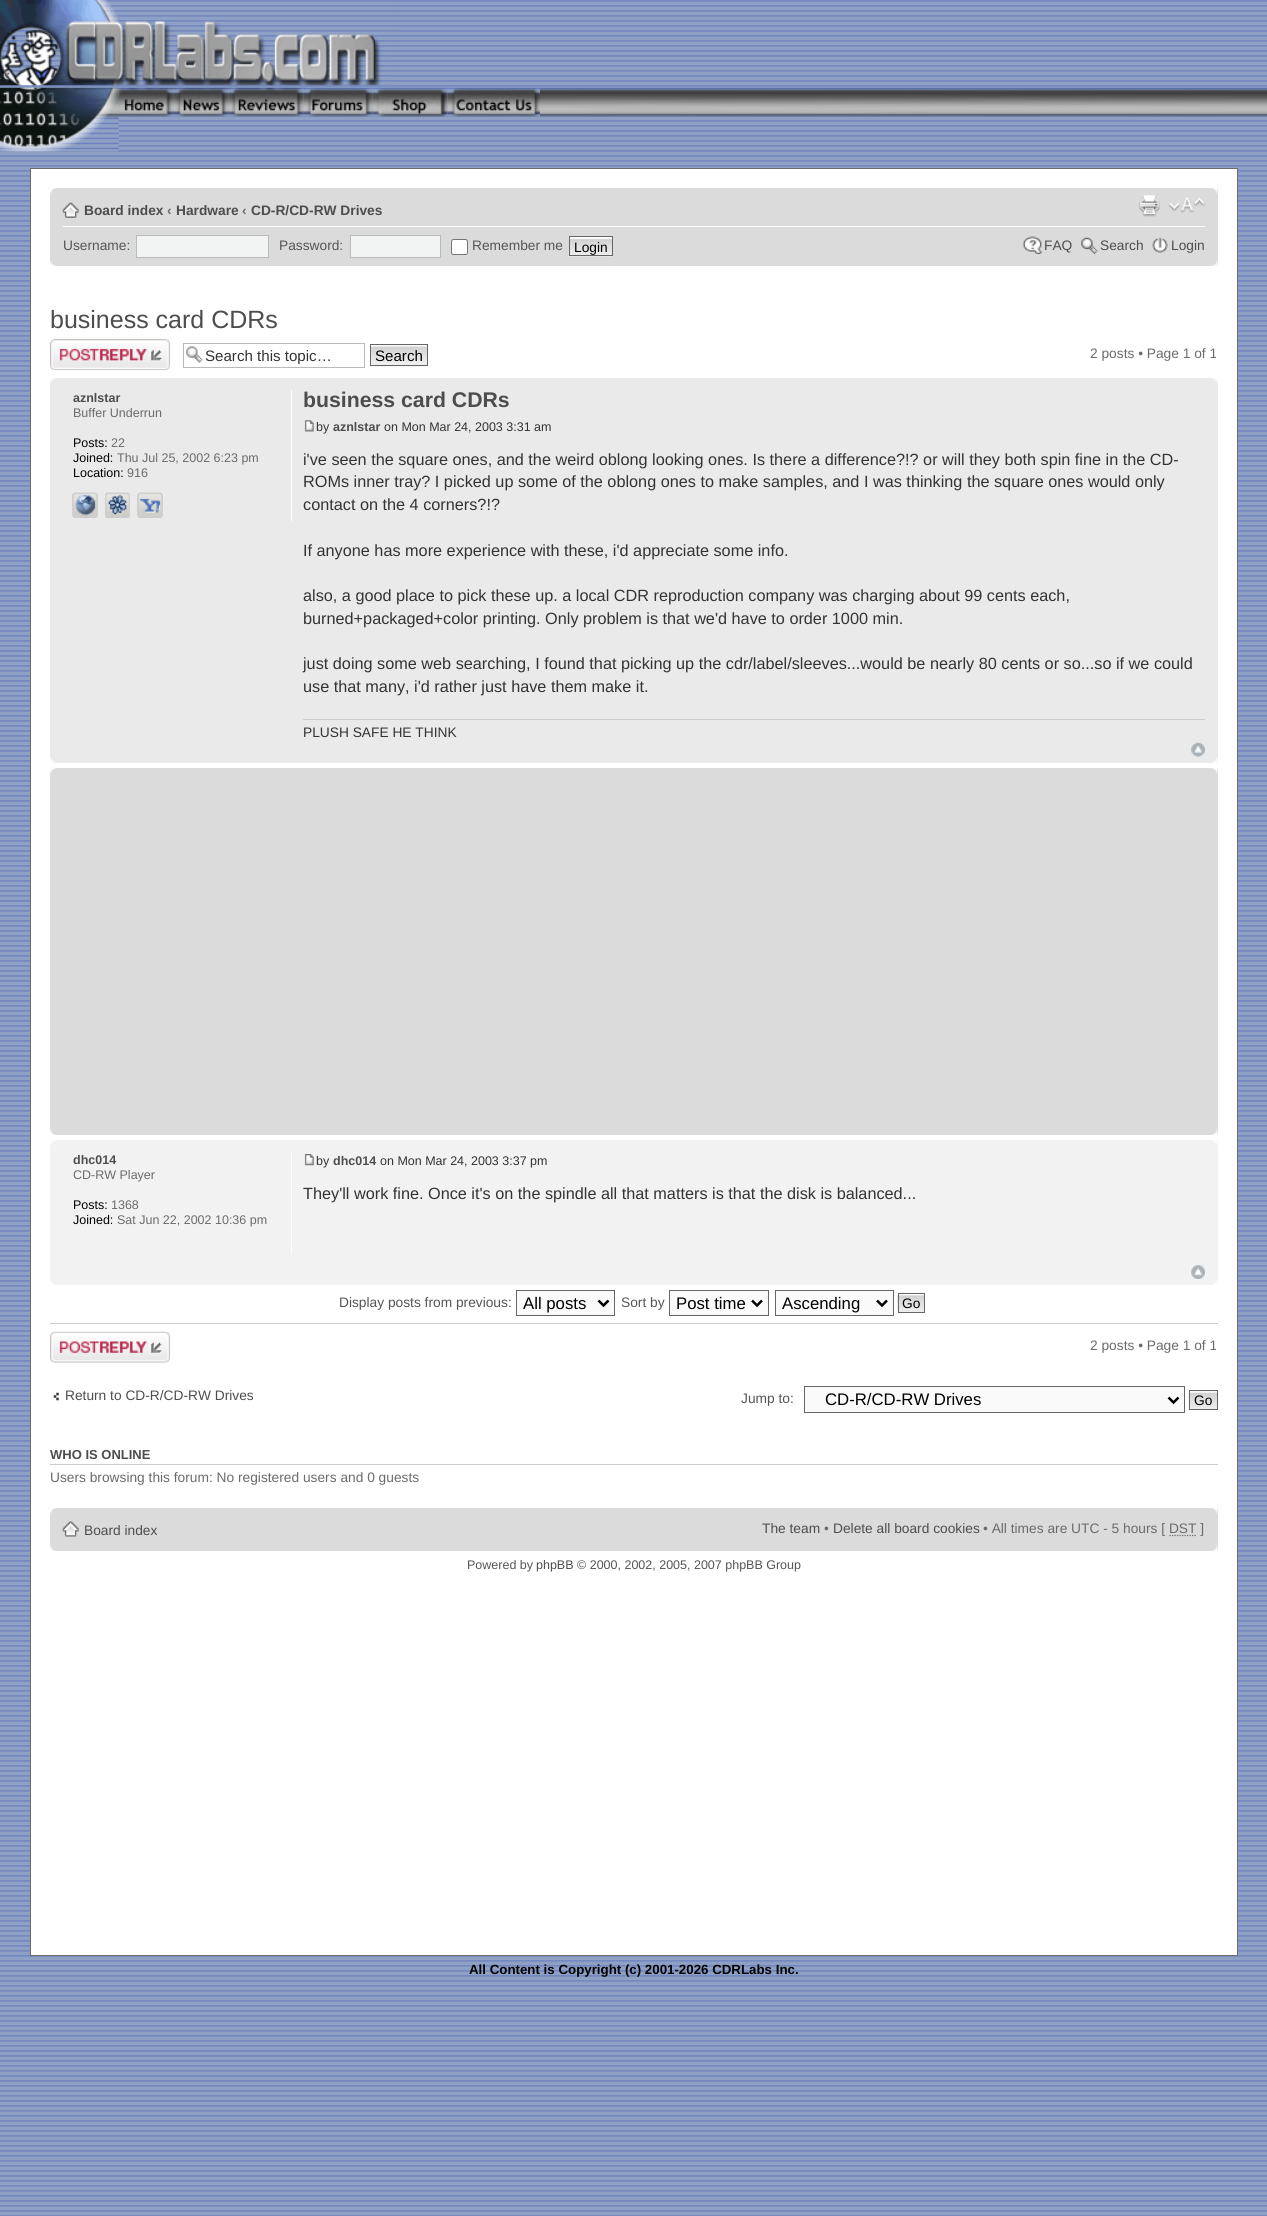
import math
import cairo



def rounded_rect(context, x, y, w, h, r):
    context.new_sub_path()
    for i, (u, v) in enumerate([(x + w - r, y + h - r), (x + r, y + h - r), (x + r, y + r), (x + w - r, y + r)]):
        context.arc(u, v, r, i * math.pi / 2, (i + 1) * math.pi / 2)
    context.close_path()


def draw_image(context, path, x, y, w, h):
    context.save()
    context.set_source_surface(cairo.ImageSurface.create_from_png(path), x, y)
    context.rectangle(x, y, w, h)
    context.fill()
    context.restore()


def draw(context):
    context.set_source_rgb(1, 1, 1)
    context.paint()
    draw_image(context, "images/1.png", 0, 0, 1267, 2216)
    draw_image(context, "images/2.png", 0, 0, 394, 86)
    draw_image(context, "images/3.png", 0, 87, 119, 65)
    draw_image(context, "images/4.png", 118, 87, 56, 30)
    draw_image(context, "images/5.png", 173, 87, 56, 30)
    draw_image(context, "images/6.png", 228, 87, 76, 30)
    draw_image(context, "images/7.png", 303, 87, 70, 30)
    draw_image(context, "images/8.png", 372, 87, 76, 30)
    draw_image(context, "images/9.png", 447, 87, 93, 30)
    draw_image(context, "images/10.png", 540, 87, 727, 30)
    context.set_source_rgb(1, 1, 1)
    context.rectangle(30.5, 168.5, 1207, 1787)
    context.fill_preserve()
    context.set_source_rgb(107 / 255, 107 / 255, 107 / 255)
    context.set_line_width(1)
    context.stroke()
    context.set_source_rgb(219 / 255, 219 / 255, 219 / 255)
    context.rectangle(50, 188, 1168, 78)
    context.fill()
    draw_image(context, "images/11.png", 50, 188, 6, 6)
    draw_image(context, "images/12.png", 1211, 188, 7, 6)
    context.set_source_rgb(1, 1, 1)
    context.rectangle(63, 226, 1142, 1)
    context.fill()
    draw_image(context, "images/13.png", 62, 202, 17, 16)
    draw_image(context, "images/14.png", 1138, 195, 22, 22)
    draw_image(context, "images/15.png", 1168, 197, 37, 16)
    context.set_source_rgb(242 / 255, 243 / 255, 243 / 255)
    context.rectangle(136.5, 235.5, 132, 22)
    context.fill_preserve()
    context.set_source_rgb(186 / 255, 186 / 255, 186 / 255)
    context.stroke()
    context.set_source_rgb(242 / 255, 243 / 255, 243 / 255)
    context.rectangle(350.5, 235.5, 90, 22)
    context.fill_preserve()
    context.set_source_rgb(186 / 255, 186 / 255, 186 / 255)
    context.stroke()
    context.set_source_rgb(1, 1, 1)
    rounded_rect(context, 451.5, 239.5, 16, 15, 2)
    context.fill_preserve()
    context.set_source_rgb(118 / 255, 118 / 255, 118 / 255)
    context.stroke()
    context.set_source_rgb(250 / 255, 250 / 255, 250 / 255)
    context.rectangle(570, 237, 42, 1)
    context.fill()
    draw_image(context, "images/16.png", 568, 238, 45, 19)
    context.rectangle(569.5, 236.5, 43, 19)
    context.set_source_rgb(102 / 255, 102 / 255, 102 / 255)
    context.stroke()
    draw_image(context, "images/17.png", 1022, 236, 21, 18)
    draw_image(context, "images/18.png", 1081, 237, 17, 17)
    draw_image(context, "images/19.png", 1152, 237, 16, 16)
    draw_image(context, "images/20.png", 50, 260, 6, 6)
    draw_image(context, "images/21.png", 1212, 260, 6, 6)
    draw_image(context, "images/22.png", 50, 339, 120, 32)
    draw_image(context, "images/23.png", 186, 346, 17, 17)
    context.rectangle(183.5, 343.5, 181, 24)
    context.set_source_rgb(186 / 255, 186 / 255, 186 / 255)
    context.stroke()
    context.set_source_rgb(250 / 255, 250 / 255, 250 / 255)
    context.rectangle(371, 345, 56, 1)
    context.fill()
    draw_image(context, "images/24.png", 370, 346, 58, 21)
    context.rectangle(370.5, 344.5, 57, 21)
    context.set_source_rgb(102 / 255, 102 / 255, 102 / 255)
    context.stroke()
    context.set_source_rgb(234 / 255, 234 / 255, 234 / 255)
    context.rectangle(50, 378, 1168, 385)
    context.fill()
    draw_image(context, "images/25.png", 50, 378, 6, 6)
    draw_image(context, "images/26.png", 1212, 378, 6, 5)
    context.set_source_rgb(1, 1, 1)
    context.rectangle(291, 390, 1, 131)
    context.fill()
    draw_image(context, "images/27.png", 72, 492, 26, 26)
    draw_image(context, "images/28.png", 73, 493, 24, 25)
    draw_image(context, "images/29.png", 105, 492, 25, 26)
    draw_image(context, "images/30.png", 105, 493, 25, 25)
    draw_image(context, "images/31.png", 137, 492, 26, 26)
    draw_image(context, "images/32.png", 138, 493, 24, 25)
    draw_image(context, "images/33.png", 304, 420, 10, 12)
    context.set_source_rgb(204 / 255, 204 / 255, 204 / 255)
    context.rectangle(303, 719, 902, 1)
    context.fill()
    draw_image(context, "images/34.png", 1191, 742, 14, 15)
    draw_image(context, "images/35.png", 50, 757, 6, 6)
    draw_image(context, "images/36.png", 1212, 757, 6, 6)
    context.set_source_rgb(219 / 255, 219 / 255, 219 / 255)
    context.rectangle(50, 768, 1168, 367)
    context.fill()
    draw_image(context, "images/11.png", 50, 768, 6, 6)
    draw_image(context, "images/12.png", 1211, 768, 7, 6)
    draw_image(context, "images/37.png", 50, 1129, 6, 6)
    draw_image(context, "images/38.png", 1211, 1129, 7, 6)
    context.set_source_rgb(242 / 255, 242 / 255, 242 / 255)
    context.rectangle(50, 1140, 1168, 145)
    context.fill()
    draw_image(context, "images/39.png", 50, 1140, 5, 6)
    draw_image(context, "images/40.png", 1212, 1140, 6, 5)
    context.set_source_rgb(1, 1, 1)
    context.rectangle(291, 1153, 1, 100)
    context.fill()
    draw_image(context, "images/41.png", 304, 1154, 10, 12)
    draw_image(context, "images/42.png", 1191, 1265, 14, 14)
    draw_image(context, "images/43.png", 50, 1280, 5, 5)
    draw_image(context, "images/44.png", 1212, 1280, 6, 5)
    context.set_source_rgb(250 / 255, 250 / 255, 250 / 255)
    context.rectangle(516.5, 1290.5, 98, 25)
    context.fill_preserve()
    context.set_source_rgb(102 / 255, 102 / 255, 102 / 255)
    context.stroke()
    context.new_path()
    context.move_to(598.5, 1300.5)
    context.line_to(603.5, 1305.5)
    context.line_to(608.5, 1300.5)
    context.set_source_rgb(0, 0, 0)
    context.set_line_width(2.5)
    context.stroke()
    context.set_source_rgb(250 / 255, 250 / 255, 250 / 255)
    context.rectangle(669.5, 1290.5, 99, 25)
    context.fill_preserve()
    context.set_source_rgb(102 / 255, 102 / 255, 102 / 255)
    context.set_line_width(1)
    context.stroke()
    context.new_path()
    context.move_to(752, 1300.5)
    context.line_to(757, 1305.5)
    context.line_to(762, 1300.5)
    context.set_source_rgb(0, 0, 0)
    context.set_line_width(2.5)
    context.stroke()
    context.set_source_rgb(250 / 255, 250 / 255, 250 / 255)
    context.rectangle(775.5, 1290.5, 118, 25)
    context.fill_preserve()
    context.set_source_rgb(102 / 255, 102 / 255, 102 / 255)
    context.set_line_width(1)
    context.stroke()
    context.new_path()
    context.move_to(877, 1300.5)
    context.line_to(882, 1305.5)
    context.line_to(887, 1300.5)
    context.set_source_rgb(0, 0, 0)
    context.set_line_width(2.5)
    context.stroke()
    draw_image(context, "images/45.png", 897, 1294, 27, 19)
    context.rectangle(898.5, 1293.5, 26, 19)
    context.set_source_rgb(102 / 255, 102 / 255, 102 / 255)
    context.set_line_width(1)
    context.stroke()
    context.set_source_rgb(204 / 255, 204 / 255, 204 / 255)
    context.rectangle(50, 1323, 1168, 1)
    context.fill()
    draw_image(context, "images/46.png", 50, 1331, 120, 32)
    draw_image(context, "images/47.png", 53, 1392, 6, 9)
    context.set_source_rgb(250 / 255, 250 / 255, 250 / 255)
    context.rectangle(804.5, 1386.5, 380, 26)
    context.fill_preserve()
    context.set_source_rgb(102 / 255, 102 / 255, 102 / 255)
    context.stroke()
    context.new_path()
    context.move_to(1168.5, 1397.5)
    context.line_to(1173.5, 1402.5)
    context.line_to(1178.5, 1397.5)
    context.set_source_rgb(0, 0, 0)
    context.set_line_width(2.5)
    context.stroke()
    context.set_source_rgb(250 / 255, 250 / 255, 250 / 255)
    context.rectangle(1190, 1391, 27, 1)
    context.fill()
    draw_image(context, "images/48.png", 1188, 1392, 30, 19)
    context.rectangle(1189.5, 1390.5, 28, 19)
    context.set_source_rgb(102 / 255, 102 / 255, 102 / 255)
    context.set_line_width(1)
    context.stroke()
    context.set_source_rgb(204 / 255, 204 / 255, 204 / 255)
    context.rectangle(50, 1464, 1168, 1)
    context.fill()
    context.set_source_rgb(219 / 255, 219 / 255, 219 / 255)
    context.rectangle(50, 1508, 1168, 43)
    context.fill()
    draw_image(context, "images/11.png", 50, 1508, 6, 6)
    draw_image(context, "images/12.png", 1211, 1508, 7, 6)
    draw_image(context, "images/49.png", 62, 1521, 17, 16)
    context.new_path()
    context.move_to(1169.5, 1535.5)
    context.line_to(1197, 1535.5)
    context.set_source_rgb(107 / 255, 107 / 255, 107 / 255)
    context.set_line_width(1.2)
    context.set_dash([1.25, 1.25])
    context.stroke()
    draw_image(context, "images/20.png", 50, 1545, 6, 6)
    draw_image(context, "images/21.png", 1212, 1545, 6, 6)
    context.select_font_face("Liberation Sans", cairo.FontSlant.NORMAL, cairo.FontWeight.BOLD)
    context.set_font_size(13.75)
    context.set_source_rgb(77 / 255, 77 / 255, 77 / 255)
    context.move_to(84, 215)
    context.show_text("Board index")
    context.set_source_rgb(107 / 255, 107 / 255, 107 / 255)
    context.move_to(167, 215)
    context.show_text("‹")
    context.set_source_rgb(77 / 255, 77 / 255, 77 / 255)
    context.move_to(176, 215)
    context.show_text("Hardware")
    context.set_source_rgb(107 / 255, 107 / 255, 107 / 255)
    context.move_to(242, 215)
    context.show_text("‹")
    context.set_source_rgb(77 / 255, 77 / 255, 77 / 255)
    context.move_to(251, 215)
    context.show_text("CD-R/CD-RW Drives")
    context.select_font_face("Liberation Sans")
    context.set_source_rgb(85 / 255, 85 / 255, 85 / 255)
    context.move_to(63, 250)
    context.show_text("Username:")
    context.move_to(279, 250)
    context.show_text("Password:")
    context.move_to(472, 250)
    context.show_text("Remember me")
    context.set_source_rgb(0, 0, 0)
    context.move_to(574, 252)
    context.show_text("Login")
    context.set_source_rgb(77 / 255, 77 / 255, 77 / 255)
    context.move_to(1044, 250)
    context.show_text("FAQ")
    context.move_to(1100, 250)
    context.show_text("Search")
    context.move_to(1171, 250)
    context.show_text("Login")
    context.set_font_size(25)
    context.move_to(50, 328)
    context.show_text("business card CDRs")
    context.set_font_size(15.1)
    context.set_source_rgb(51 / 255, 51 / 255, 51 / 255)
    context.move_to(205, 361)
    context.show_text("Search this topic…")
    context.set_source_rgb(0, 0, 0)
    context.move_to(375, 361)
    context.show_text("Search")
    context.set_font_size(13.75)
    context.set_source_rgb(107 / 255, 107 / 255, 107 / 255)
    context.move_to(1090, 358)
    context.show_text("2 posts • Page 1 of 1")
    context.select_font_face("Liberation Sans", cairo.FontSlant.NORMAL, cairo.FontWeight.BOLD)
    context.set_font_size(12.5)
    context.set_source_rgb(77 / 255, 77 / 255, 77 / 255)
    context.move_to(73, 402)
    context.show_text("aznlstar")
    context.select_font_face("Liberation Sans")
    context.set_source_rgb(107 / 255, 107 / 255, 107 / 255)
    context.move_to(73, 417)
    context.show_text("Buffer Underrun")
    context.set_source_rgb(0, 0, 0)
    context.move_to(73, 447)
    context.show_text("Posts:")
    context.set_source_rgb(107 / 255, 107 / 255, 107 / 255)
    context.move_to(111, 447)
    context.show_text("22")
    context.set_source_rgb(0, 0, 0)
    context.move_to(73, 462)
    context.show_text("Joined:")
    context.set_source_rgb(107 / 255, 107 / 255, 107 / 255)
    context.move_to(117, 462)
    context.show_text("Thu Jul 25, 2002 6:23 pm")
    context.set_source_rgb(0, 0, 0)
    context.move_to(73, 477)
    context.show_text("Location:")
    context.set_source_rgb(107 / 255, 107 / 255, 107 / 255)
    context.move_to(127, 477)
    context.show_text("916")
    context.select_font_face("Liberation Sans", cairo.FontSlant.NORMAL, cairo.FontWeight.BOLD)
    context.set_font_size(21.25)
    context.set_source_rgb(77 / 255, 77 / 255, 77 / 255)
    context.move_to(303, 407)
    context.show_text("business card CDRs")
    context.select_font_face("Liberation Sans")
    context.set_font_size(12.5)
    context.set_source_rgb(51 / 255, 51 / 255, 51 / 255)
    context.move_to(316, 431)
    context.show_text("by")
    context.select_font_face("Liberation Sans", cairo.FontSlant.NORMAL, cairo.FontWeight.BOLD)
    context.set_source_rgb(77 / 255, 77 / 255, 77 / 255)
    context.move_to(333, 431)
    context.show_text("aznlstar")
    context.select_font_face("Liberation Sans")
    context.set_source_rgb(51 / 255, 51 / 255, 51 / 255)
    context.move_to(384, 431)
    context.show_text("on Mon Mar 24, 2003 3:31 am")
    context.set_font_size(16.25)
    context.move_to(303, 465)
    context.show_text("i've seen the square ones, and the weird oblong looking ones. Is there a difference?!? or will they both spin fine in the CD-")
    context.move_to(303, 487)
    context.show_text("ROMs inner tray? I picked up some of the oblong ones to make samples, and I was thinking the square ones would only")
    context.move_to(303, 510)
    context.show_text("contact on the 4 corners?!?")
    context.move_to(303, 556)
    context.show_text("If anyone has more experience with these, i'd appreciate some info.")
    context.move_to(303, 601)
    context.show_text("also, a good place to pick these up. a local CDR reproduction company was charging about 99 cents each,")
    context.move_to(303, 624)
    context.show_text("burned+packaged+color printing. Only problem is that we'd have to order 1000 min.")
    context.move_to(303, 669)
    context.show_text("just doing some web searching, I found that picking up the cdr/label/sleeves...would be nearly 80 cents or so...so if we could")
    context.move_to(303, 692)
    context.show_text("use that many, i'd rather just have them make it.")
    context.set_font_size(13.75)
    context.move_to(303, 737)
    context.show_text("PLUSH SAFE HE THINK")
    context.select_font_face("Liberation Sans", cairo.FontSlant.NORMAL, cairo.FontWeight.BOLD)
    context.set_font_size(12.5)
    context.set_source_rgb(77 / 255, 77 / 255, 77 / 255)
    context.move_to(73, 1164)
    context.show_text("dhc014")
    context.select_font_face("Liberation Sans")
    context.set_source_rgb(107 / 255, 107 / 255, 107 / 255)
    context.move_to(73, 1179)
    context.show_text("CD-RW Player")
    context.set_source_rgb(0, 0, 0)
    context.move_to(73, 1209)
    context.show_text("Posts:")
    context.set_source_rgb(107 / 255, 107 / 255, 107 / 255)
    context.move_to(111, 1209)
    context.show_text("1368")
    context.set_source_rgb(0, 0, 0)
    context.move_to(73, 1224)
    context.show_text("Joined:")
    context.set_source_rgb(107 / 255, 107 / 255, 107 / 255)
    context.move_to(117, 1224)
    context.show_text("Sat Jun 22, 2002 10:36 pm")
    context.set_source_rgb(51 / 255, 51 / 255, 51 / 255)
    context.move_to(316, 1165)
    context.show_text("by")
    context.select_font_face("Liberation Sans", cairo.FontSlant.NORMAL, cairo.FontWeight.BOLD)
    context.set_source_rgb(77 / 255, 77 / 255, 77 / 255)
    context.move_to(333, 1165)
    context.show_text("dhc014")
    context.select_font_face("Liberation Sans")
    context.set_source_rgb(51 / 255, 51 / 255, 51 / 255)
    context.move_to(380, 1165)
    context.show_text("on Mon Mar 24, 2003 3:37 pm")
    context.set_font_size(16.25)
    context.move_to(303, 1199)
    context.show_text("They'll work fine. Once it's on the spindle all that matters is that the disk is balanced...")
    context.set_font_size(13.75)
    context.set_source_rgb(85 / 255, 85 / 255, 85 / 255)
    context.move_to(339, 1307)
    context.show_text("Display posts from previous:")
    context.set_font_size(16.75)
    context.set_source_rgb(0, 0, 0)
    context.move_to(523, 1309)
    context.show_text("All posts")
    context.set_font_size(13.75)
    context.set_source_rgb(85 / 255, 85 / 255, 85 / 255)
    context.move_to(621, 1307)
    context.show_text("Sort by")
    context.set_font_size(16.75)
    context.set_source_rgb(0, 0, 0)
    context.move_to(676, 1309)
    context.show_text("Post time")
    context.move_to(782, 1309)
    context.show_text("Ascending")
    context.set_font_size(13.75)
    context.move_to(902, 1308)
    context.show_text("Go")
    context.set_source_rgb(107 / 255, 107 / 255, 107 / 255)
    context.move_to(1090, 1350)
    context.show_text("2 posts • Page 1 of 1")
    context.set_source_rgb(77 / 255, 77 / 255, 77 / 255)
    context.move_to(65, 1400)
    context.show_text("Return to CD-R/CD-RW Drives")
    context.set_source_rgb(85 / 255, 85 / 255, 85 / 255)
    context.move_to(741, 1403)
    context.show_text("Jump to:")
    context.set_font_size(16.75)
    context.set_source_rgb(0, 0, 0)
    context.move_to(825, 1405)
    context.show_text("CD-R/CD-RW Drives")
    context.set_font_size(13.75)
    context.move_to(1194, 1405)
    context.show_text("Go")
    context.select_font_face("Liberation Sans", cairo.FontSlant.NORMAL, cairo.FontWeight.BOLD)
    context.set_font_size(13)
    context.set_source_rgb(77 / 255, 77 / 255, 77 / 255)
    context.move_to(50, 1459)
    context.show_text("WHO IS ONLINE")
    context.select_font_face("Liberation Sans")
    context.set_font_size(13.75)
    context.set_source_rgb(107 / 255, 107 / 255, 107 / 255)
    context.move_to(50, 1482)
    context.show_text("Users browsing this forum: No registered users and 0 guests")
    context.set_source_rgb(77 / 255, 77 / 255, 77 / 255)
    context.move_to(84, 1535)
    context.show_text("Board index")
    context.move_to(762, 1533)
    context.show_text("The team")
    context.set_source_rgb(107 / 255, 107 / 255, 107 / 255)
    context.move_to(824, 1533)
    context.show_text("•")
    context.set_source_rgb(77 / 255, 77 / 255, 77 / 255)
    context.move_to(833, 1533)
    context.show_text("Delete all board cookies")
    context.set_source_rgb(107 / 255, 107 / 255, 107 / 255)
    context.move_to(983, 1533)
    context.show_text("• All times are UTC - 5 hours [ DST ]")
    context.set_font_size(12.5)
    context.set_source_rgb(85 / 255, 85 / 255, 85 / 255)
    context.move_to(467, 1569)
    context.show_text("Powered by")
    context.set_source_rgb(77 / 255, 77 / 255, 77 / 255)
    context.move_to(536, 1569)
    context.show_text("phpBB")
    context.set_source_rgb(85 / 255, 85 / 255, 85 / 255)
    context.move_to(577, 1569)
    context.show_text("© 2000, 2002, 2005, 2007 phpBB Group")
    context.select_font_face("Liberation Sans", cairo.FontSlant.NORMAL, cairo.FontWeight.BOLD)
    context.set_font_size(13.3)
    context.set_source_rgb(0, 0, 0)
    context.move_to(469, 1974)
    context.show_text("All Content is Copyright (c) 2001-2026 CDRLabs Inc.")


surface = cairo.ImageSurface(cairo.Format.RGB24, 1267, 2216)
context = cairo.Context(surface)
options = cairo.FontOptions()
options.set_hint_metrics(cairo.HintMetrics.OFF)
options.set_hint_style(cairo.HintStyle.NONE)
context.set_font_options(options)
context.set_miter_limit(4)
draw(context)
surface.write_to_png("out.png")
